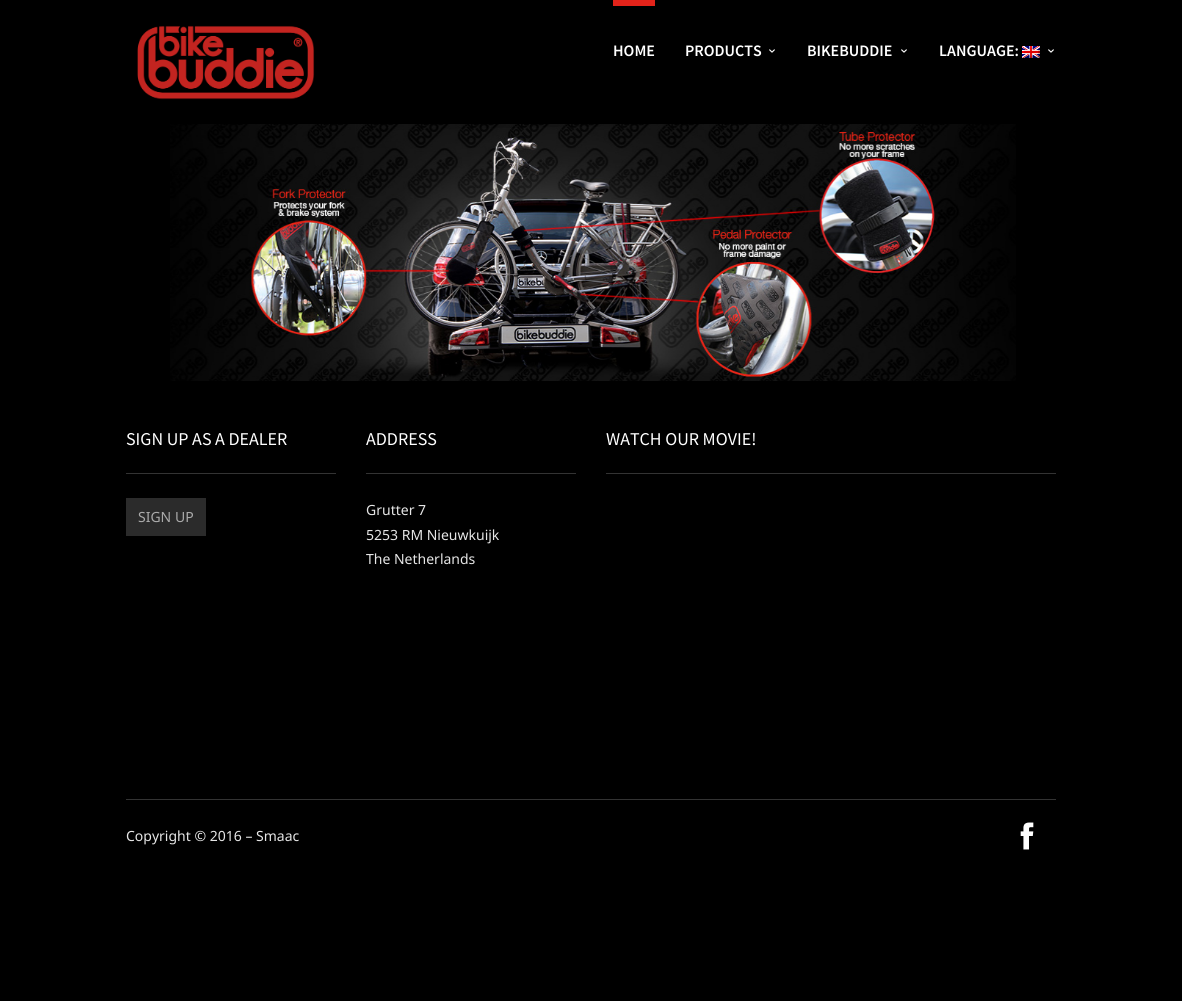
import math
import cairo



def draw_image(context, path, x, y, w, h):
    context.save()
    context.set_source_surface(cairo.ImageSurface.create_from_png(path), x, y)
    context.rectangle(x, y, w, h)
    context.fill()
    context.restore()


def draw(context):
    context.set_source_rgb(0, 0, 0)
    context.paint()
    draw_image(context, "images/1.png", 137, 25, 178, 75)
    context.set_source_rgb(226 / 255, 35 / 255, 26 / 255)
    context.rectangle(613, 0, 42, 6)
    context.fill()
    draw_image(context, "images/2.png", 769, 49, 6, 4)
    draw_image(context, "images/2.png", 901, 49, 6, 4)
    draw_image(context, "images/3.png", 1022, 46, 18, 12)
    draw_image(context, "images/2.png", 1048, 49, 6, 4)
    draw_image(context, "images/4.png", 170, 124, 846, 257)
    context.set_source_rgb(51 / 255, 51 / 255, 51 / 255)
    context.rectangle(126, 473, 210, 1)
    context.fill()
    context.set_source_rgb(43 / 255, 43 / 255, 43 / 255)
    context.rectangle(126, 498, 80, 38)
    context.fill()
    context.set_source_rgb(51 / 255, 51 / 255, 51 / 255)
    context.rectangle(366, 473, 210, 1)
    context.fill()
    context.rectangle(606, 473, 450, 1)
    context.fill()
    context.rectangle(126, 799, 930, 1)
    context.fill()
    draw_image(context, "images/5.png", 1020, 822, 14, 28)
    context.select_font_face("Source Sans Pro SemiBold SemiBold")
    context.set_font_size(16)
    context.set_source_rgb(1, 1, 1)
    context.move_to(613, 56)
    context.show_text("HOME")
    context.move_to(685, 56)
    context.show_text("PRODUCTS")
    context.move_to(807, 56)
    context.show_text("BIKEBUDDIE")
    context.move_to(939, 56)
    context.show_text("LANGUAGE:")
    context.select_font_face("Source Sans Pro")
    context.set_font_size(18)
    context.move_to(126, 445)
    context.show_text("SIGN UP AS A DEALER")
    context.select_font_face("Noto Sans")
    context.set_font_size(14)
    context.set_source_rgb(170 / 255, 170 / 255, 170 / 255)
    context.move_to(138, 522)
    context.show_text("SIGN UP")
    context.select_font_face("Source Sans Pro")
    context.set_font_size(18)
    context.set_source_rgb(1, 1, 1)
    context.move_to(366, 445)
    context.show_text("ADDRESS")
    context.select_font_face("Noto Sans")
    context.set_font_size(14)
    context.set_source_rgb(230 / 255, 230 / 255, 230 / 255)
    context.move_to(366, 515)
    context.show_text("Grutter 7")
    context.move_to(366, 540)
    context.show_text("5253 RM Nieuwkuijk")
    context.move_to(366, 564)
    context.show_text("The Netherlands")
    context.select_font_face("Source Sans Pro")
    context.set_font_size(18)
    context.set_source_rgb(1, 1, 1)
    context.move_to(606, 445)
    context.show_text("WATCH OUR MOVIE!")
    context.select_font_face("Noto Sans")
    context.set_font_size(14)
    context.set_source_rgb(230 / 255, 230 / 255, 230 / 255)
    context.move_to(126, 841)
    context.show_text("Copyright © 2016 – Smaac")


surface = cairo.ImageSurface(cairo.Format.RGB24, 1182, 1001)
context = cairo.Context(surface)
options = cairo.FontOptions()
options.set_hint_metrics(cairo.HintMetrics.OFF)
options.set_hint_style(cairo.HintStyle.NONE)
context.set_font_options(options)
context.set_miter_limit(4)
draw(context)
surface.write_to_png("out.png")
